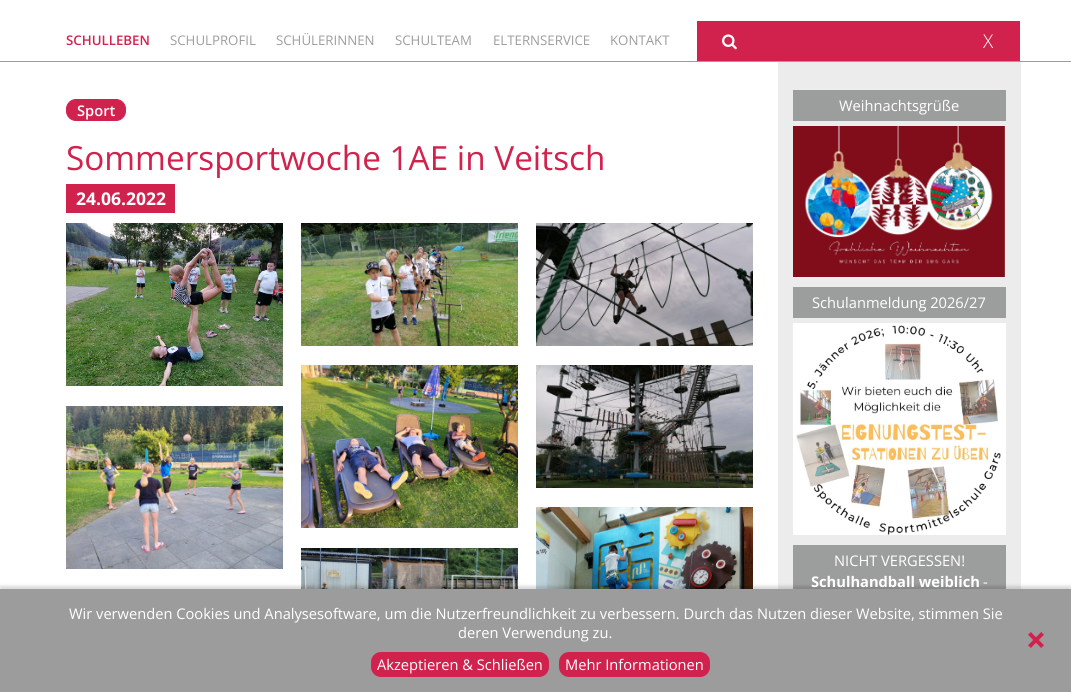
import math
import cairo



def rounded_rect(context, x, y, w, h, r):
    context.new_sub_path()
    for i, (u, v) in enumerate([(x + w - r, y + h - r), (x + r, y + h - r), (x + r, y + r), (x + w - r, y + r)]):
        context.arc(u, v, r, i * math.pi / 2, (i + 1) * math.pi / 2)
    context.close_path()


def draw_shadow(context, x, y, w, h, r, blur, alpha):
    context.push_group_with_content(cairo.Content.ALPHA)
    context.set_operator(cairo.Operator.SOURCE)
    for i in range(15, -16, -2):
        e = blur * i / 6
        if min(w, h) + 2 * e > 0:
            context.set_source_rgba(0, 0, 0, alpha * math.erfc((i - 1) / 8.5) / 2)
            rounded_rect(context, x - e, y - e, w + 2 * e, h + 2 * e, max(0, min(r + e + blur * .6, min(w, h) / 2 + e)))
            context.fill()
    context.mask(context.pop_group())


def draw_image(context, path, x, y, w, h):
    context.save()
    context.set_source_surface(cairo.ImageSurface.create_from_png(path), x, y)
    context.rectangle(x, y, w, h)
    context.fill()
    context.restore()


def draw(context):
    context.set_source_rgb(1, 1, 1)
    context.paint()
    context.set_source_rgb(156 / 255, 157 / 255, 157 / 255)
    context.rectangle(0, 61, 1071, 1)
    context.fill()
    context.set_source_rgb(209 / 255, 34 / 255, 78 / 255)
    context.rectangle(697, 21, 323, 40)
    context.fill()
    draw_image(context, "images/1.png", 722, 34, 15, 16)
    rounded_rect(context, 66.5, 99.5, 59, 21, 9.5)
    context.fill_preserve()
    context.set_line_width(1)
    context.stroke()
    context.rectangle(66, 184, 109, 29)
    context.fill()
    draw_image(context, "images/2.png", 66, 223, 217, 163)
    draw_image(context, "images/3.png", 301, 223, 217, 123)
    draw_image(context, "images/4.png", 536, 223, 217, 123)
    draw_image(context, "images/5.png", 66, 406, 217, 163)
    draw_image(context, "images/6.png", 301, 365, 217, 163)
    draw_image(context, "images/7.png", 536, 365, 217, 123)
    draw_image(context, "images/8.png", 301, 548, 217, 41)
    draw_image(context, "images/9.png", 536, 507, 217, 82)
    context.set_source_rgb(236 / 255, 236 / 255, 236 / 255)
    context.rectangle(778, 62, 243, 527)
    context.fill()
    context.set_source_rgb(156 / 255, 157 / 255, 157 / 255)
    context.rectangle(793, 90, 213, 31)
    context.fill()
    draw_image(context, "images/10.png", 793, 126, 212, 151)
    context.rectangle(793, 287, 213, 31)
    context.fill()
    draw_image(context, "images/11.png", 793, 323, 213, 212)
    context.rectangle(793, 545, 213, 44)
    context.fill()
    context.set_source_rgb(0, 0, 0)
    draw_shadow(context, 0, 586, 1071, 103, 0, 1.5, 0.15)
    context.set_source_rgb(157 / 255, 156 / 255, 156 / 255)
    context.rectangle(0, 589, 1071, 103)
    context.fill()
    context.set_source_rgb(209 / 255, 34 / 255, 78 / 255)
    rounded_rect(context, 371, 652, 178, 25, 10)
    context.fill()
    rounded_rect(context, 559, 652, 151, 25, 10)
    context.fill()
    draw_image(context, "images/12.png", 1028, 632, 16, 16)
    context.select_font_face("Open Sans SemiBold")
    context.set_font_size(13.25)
    context.move_to(66, 45)
    context.show_text("SCHULLEBEN")
    context.select_font_face("Open Sans")
    context.set_source_rgb(156 / 255, 157 / 255, 157 / 255)
    context.move_to(170, 45)
    context.show_text("SCHULPROFIL")
    context.move_to(276, 45)
    context.show_text("SCHÜLERINNEN")
    context.move_to(395, 45)
    context.show_text("SCHULTEAM")
    context.move_to(493, 45)
    context.show_text("ELTERNSERVICE")
    context.move_to(610, 45)
    context.show_text("KONTAKT")
    context.select_font_face("Open Sans Light")
    context.set_font_size(19)
    context.set_source_rgb(1, 1, 1)
    context.move_to(983, 48)
    context.show_text("X")
    context.select_font_face("Open Sans SemiBold")
    context.set_font_size(14.67)
    context.move_to(77, 116)
    context.show_text("Sport")
    context.select_font_face("Open Sans")
    context.set_font_size(33.3)
    context.set_source_rgb(209 / 255, 34 / 255, 78 / 255)
    context.move_to(66, 170)
    context.show_text("Sommersportwoche 1AE in Veitsch")
    context.select_font_face("Open Sans", cairo.FontSlant.NORMAL, cairo.FontWeight.BOLD)
    context.set_font_size(17.5)
    context.set_source_rgb(1, 1, 1)
    context.move_to(76, 205)
    context.show_text("24.06.2022")
    context.select_font_face("Open Sans")
    context.set_font_size(14.67)
    context.move_to(839, 111)
    context.show_text("Weihnachtsgrüße")
    context.move_to(812, 308)
    context.show_text("Schulanmeldung 2026/27")
    context.move_to(834, 566)
    context.show_text("NICHT VERGESSEN!")
    context.select_font_face("Open Sans", cairo.FontSlant.NORMAL, cairo.FontWeight.BOLD)
    context.move_to(811, 587)
    context.show_text("Schulhandball weiblich")
    context.select_font_face("Open Sans")
    context.move_to(983, 587)
    context.show_text("-")
    context.move_to(69, 619)
    context.show_text("Wir verwenden Cookies und Analysesoftware, um die Nutzerfreundlichkeit zu verbessern. Durch das Nutzen dieser Website, stimmen Sie")
    context.move_to(458, 638)
    context.show_text("deren Verwendung zu.")
    context.move_to(377, 670)
    context.show_text("Akzeptieren & Schließen")
    context.move_to(565, 670)
    context.show_text("Mehr Informationen")


surface = cairo.ImageSurface(cairo.Format.RGB24, 1071, 692)
context = cairo.Context(surface)
options = cairo.FontOptions()
options.set_hint_metrics(cairo.HintMetrics.OFF)
options.set_hint_style(cairo.HintStyle.NONE)
context.set_font_options(options)
context.set_miter_limit(4)
draw(context)
surface.write_to_png("out.png")
